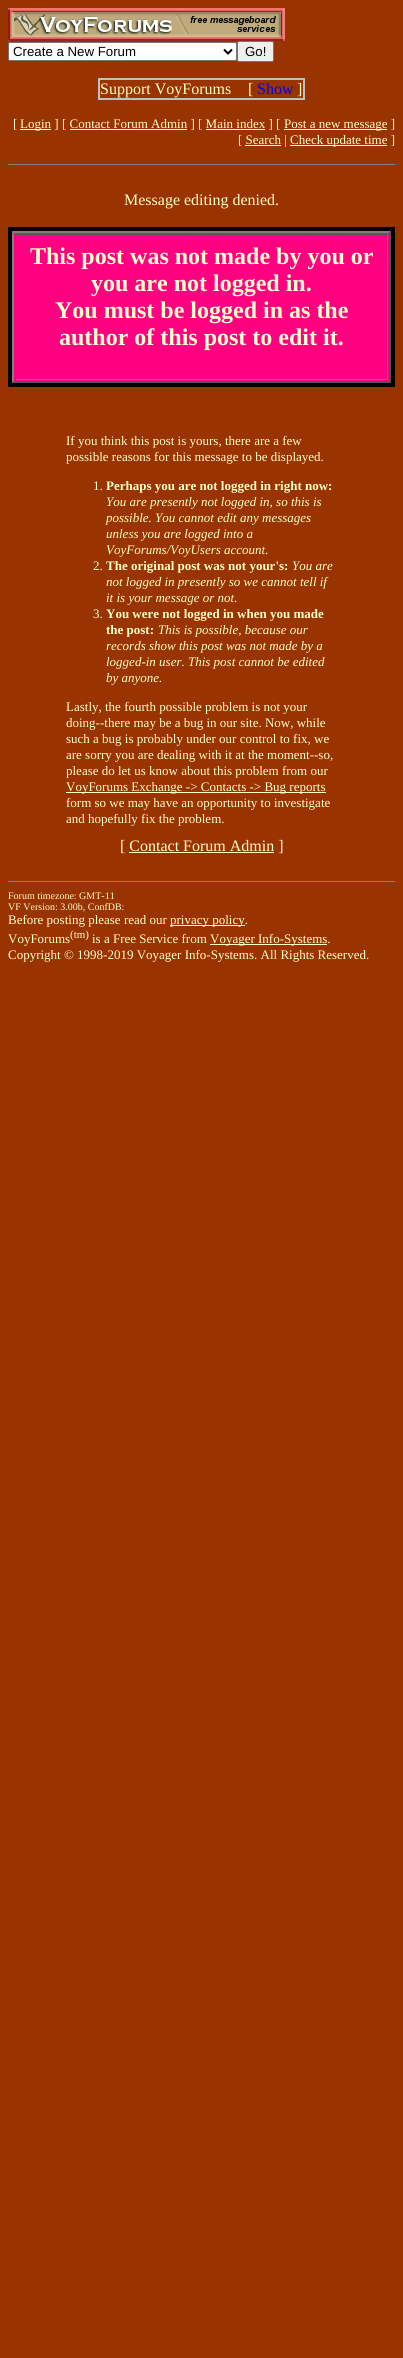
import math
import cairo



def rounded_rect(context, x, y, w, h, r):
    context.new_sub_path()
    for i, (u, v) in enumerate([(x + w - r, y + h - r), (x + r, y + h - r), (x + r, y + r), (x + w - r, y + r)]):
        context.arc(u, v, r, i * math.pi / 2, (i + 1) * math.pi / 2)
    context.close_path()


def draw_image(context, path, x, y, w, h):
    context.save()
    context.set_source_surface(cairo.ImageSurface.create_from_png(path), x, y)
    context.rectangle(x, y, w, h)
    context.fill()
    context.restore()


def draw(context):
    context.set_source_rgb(153 / 255, 51 / 255, 0)
    context.paint()
    draw_image(context, "images/1.png", 8, 8, 277, 33)
    context.set_source_rgb(1, 1, 1)
    rounded_rect(context, 8.5, 42.5, 228, 18, 1.5)
    context.fill_preserve()
    context.set_source_rgb(118 / 255, 118 / 255, 118 / 255)
    context.set_line_width(1)
    context.stroke()
    context.new_path()
    context.move_to(224, 49.5)
    context.line_to(228, 53.5)
    context.line_to(232, 49.5)
    context.set_source_rgb(0, 0, 0)
    context.set_line_width(2)
    context.stroke()
    context.set_source_rgb(239 / 255, 239 / 255, 239 / 255)
    rounded_rect(context, 237.5, 41.5, 36, 20, 1.5)
    context.fill_preserve()
    context.set_source_rgb(118 / 255, 118 / 255, 118 / 255)
    context.set_line_width(1)
    context.stroke()
    context.rectangle(99, 79, 205, 20)
    context.set_source_rgb(192 / 255, 192 / 255, 192 / 255)
    context.set_line_width(2)
    context.stroke()
    context.set_source_rgb(1, 1, 204 / 255)
    context.rectangle(20, 129, 31, 1)
    context.fill()
    context.rectangle(70, 129, 117, 1)
    context.fill()
    context.rectangle(206, 129, 59, 1)
    context.fill()
    context.rectangle(284, 129, 103, 1)
    context.fill()
    context.rectangle(245, 145, 36, 1)
    context.fill()
    context.rectangle(290, 145, 97, 1)
    context.fill()
    context.set_source_rgb(128 / 255, 128 / 255, 128 / 255)
    context.rectangle(8, 164, 387, 1)
    context.fill()
    context.set_source_rgb(0, 0, 0)
    context.rectangle(8, 227, 387, 160)
    context.fill()
    context.set_source_rgb(1, 0, 128 / 255)
    context.rectangle(12, 231, 379, 152)
    context.fill()
    context.set_source_rgb(128 / 255, 128 / 255, 128 / 255)
    context.new_path()
    context.move_to(12, 231)
    context.line_to(391, 231)
    context.line_to(389, 233)
    context.line_to(14, 233)
    context.close_path()
    context.fill()
    context.set_source_rgb(85 / 255, 85 / 255, 85 / 255)
    context.new_path()
    context.move_to(391, 231)
    context.line_to(391, 383)
    context.line_to(389, 381)
    context.line_to(389, 233)
    context.close_path()
    context.fill()
    context.new_path()
    context.move_to(391, 383)
    context.line_to(12, 383)
    context.line_to(14, 381)
    context.line_to(389, 381)
    context.close_path()
    context.fill()
    context.set_source_rgb(128 / 255, 128 / 255, 128 / 255)
    context.new_path()
    context.move_to(12, 383)
    context.line_to(12, 231)
    context.line_to(14, 233)
    context.line_to(14, 381)
    context.close_path()
    context.fill()
    context.set_source_rgb(85 / 255, 85 / 255, 85 / 255)
    context.rectangle(15, 234, 373, 1)
    context.fill()
    context.set_source_rgb(128 / 255, 128 / 255, 128 / 255)
    context.rectangle(387, 234, 1, 146)
    context.fill()
    context.rectangle(15, 379, 373, 1)
    context.fill()
    context.set_source_rgb(85 / 255, 85 / 255, 85 / 255)
    context.rectangle(15, 234, 1, 146)
    context.fill()
    context.set_source_rgb(1, 1, 204 / 255)
    context.rectangle(66, 792, 260, 1)
    context.fill()
    context.rectangle(129, 852, 145, 1)
    context.fill()
    context.set_source_rgb(128 / 255, 128 / 255, 128 / 255)
    context.rectangle(8, 881, 387, 1)
    context.fill()
    context.set_source_rgb(1, 1, 204 / 255)
    context.rectangle(170, 925, 75, 1)
    context.fill()
    context.rectangle(210, 944, 117, 1)
    context.fill()
    context.select_font_face("Liberation Sans")
    context.set_font_size(13.25)
    context.set_source_rgb(0, 0, 0)
    context.move_to(13, 56)
    context.show_text("Create a New Forum")
    context.move_to(245, 56)
    context.show_text("Go!")
    context.select_font_face("Liberation Serif")
    context.set_font_size(16)
    context.set_source_rgb(1, 1, 204 / 255)
    context.move_to(100, 94)
    context.show_text("Support VoyForums")
    context.move_to(248, 94)
    context.show_text("[")
    context.set_source_rgb(0, 0, 1)
    context.move_to(257, 94)
    context.show_text("Show")
    context.set_source_rgb(1, 1, 204 / 255)
    context.move_to(297, 94)
    context.show_text("]")
    context.set_font_size(13)
    context.move_to(13, 128)
    context.show_text("[")
    context.move_to(20, 128)
    context.show_text("Login ] [ Contact Forum Admin ] [ Main index ] [")
    context.move_to(284, 128)
    context.show_text("Post a new message ]")
    context.move_to(238, 144)
    context.show_text("[ Search |")
    context.move_to(290, 144)
    context.show_text("Check update time ]")
    context.set_font_size(16)
    context.move_to(124, 205)
    context.show_text("Message editing denied.")
    context.select_font_face("Liberation Serif", cairo.FontSlant.NORMAL, cairo.FontWeight.BOLD)
    context.set_font_size(24)
    context.move_to(30, 264)
    context.show_text("This post was not made by you or")
    context.move_to(91, 291)
    context.show_text("you are not logged in.")
    context.move_to(55, 318)
    context.show_text("You must be logged in as the")
    context.move_to(59, 345)
    context.show_text("author of this post to edit it.")
    context.select_font_face("Liberation Serif")
    context.set_font_size(13)
    context.move_to(66, 445)
    context.show_text("If you think this post is yours, there are a few")
    context.move_to(66, 461)
    context.show_text("possible reasons for this message to be displayed.")
    context.move_to(93, 490)
    context.show_text("1.")
    context.select_font_face("Liberation Serif", cairo.FontSlant.NORMAL, cairo.FontWeight.BOLD)
    context.move_to(106, 490)
    context.show_text("Perhaps you are not logged in right now:")
    context.select_font_face("Liberation Serif", cairo.FontSlant.ITALIC)
    context.move_to(106, 506)
    context.show_text("You are presently not logged in, so this is")
    context.move_to(106, 522)
    context.show_text("possible. You cannot edit any messages")
    context.move_to(106, 538)
    context.show_text("unless you are logged into a")
    context.move_to(106, 554)
    context.show_text("VoyForums/VoyUsers account.")
    context.select_font_face("Liberation Serif")
    context.move_to(93, 570)
    context.show_text("2.")
    context.select_font_face("Liberation Serif", cairo.FontSlant.NORMAL, cairo.FontWeight.BOLD)
    context.move_to(106, 570)
    context.show_text("The original post was not your's:")
    context.select_font_face("Liberation Serif", cairo.FontSlant.ITALIC)
    context.move_to(292, 570)
    context.show_text("You are")
    context.move_to(106, 586)
    context.show_text("not logged in presently so we cannot tell if")
    context.move_to(106, 602)
    context.show_text("it is your message or not.")
    context.select_font_face("Liberation Serif")
    context.move_to(93, 618)
    context.show_text("3.")
    context.select_font_face("Liberation Serif", cairo.FontSlant.NORMAL, cairo.FontWeight.BOLD)
    context.move_to(106, 618)
    context.show_text("You were not logged in when you made")
    context.move_to(106, 634)
    context.show_text("the post:")
    context.select_font_face("Liberation Serif", cairo.FontSlant.ITALIC)
    context.move_to(158, 634)
    context.show_text("This is possible, because our")
    context.move_to(106, 650)
    context.show_text("records show this post was not made by a")
    context.move_to(106, 666)
    context.show_text("logged-in user. This post cannot be edited")
    context.move_to(106, 682)
    context.show_text("by anyone.")
    context.select_font_face("Liberation Serif")
    context.move_to(66, 711)
    context.show_text("Lastly, the fourth possible problem is not your")
    context.move_to(66, 727)
    context.show_text("doing--there may be a bug in our site. Now, while")
    context.move_to(66, 743)
    context.show_text("such a bug is probably under our control to fix, we")
    context.move_to(66, 759)
    context.show_text("are sorry you are dealing with it at the moment--so,")
    context.move_to(66, 775)
    context.show_text("please do let us know about this problem from our")
    context.move_to(66, 791)
    context.show_text("VoyForums Exchange -> Contacts -> Bug reports")
    context.move_to(66, 807)
    context.show_text("form so we may have an opportunity to investigate")
    context.move_to(66, 823)
    context.show_text("and hopefully fix the problem.")
    context.set_font_size(16)
    context.move_to(120, 851)
    context.show_text("[ Contact Forum Admin ]")
    context.set_font_size(10)
    context.move_to(8, 899)
    context.show_text("Forum timezone: GMT-11")
    context.move_to(8, 910)
    context.show_text("VF Version: 3.00b, ConfDB:")
    context.set_font_size(13)
    context.move_to(8, 924)
    context.show_text("Before posting please read our")
    context.move_to(170, 924)
    context.show_text("privacy policy.")
    context.move_to(8, 943)
    context.show_text("VoyForums")
    context.set_font_size(11)
    context.move_to(70, 938)
    context.show_text("(tm)")
    context.set_font_size(13)
    context.move_to(92, 943)
    context.show_text("is a Free Service from")
    context.move_to(210, 943)
    context.show_text("Voyager Info-Systems.")
    context.move_to(8, 959)
    context.show_text("Copyright © 1998-2019 Voyager Info-Systems. All Rights Reserved.")


surface = cairo.ImageSurface(cairo.Format.RGB24, 403, 2358)
context = cairo.Context(surface)
options = cairo.FontOptions()
options.set_hint_metrics(cairo.HintMetrics.OFF)
options.set_hint_style(cairo.HintStyle.NONE)
context.set_font_options(options)
context.set_miter_limit(4)
draw(context)
surface.write_to_png("out.png")
